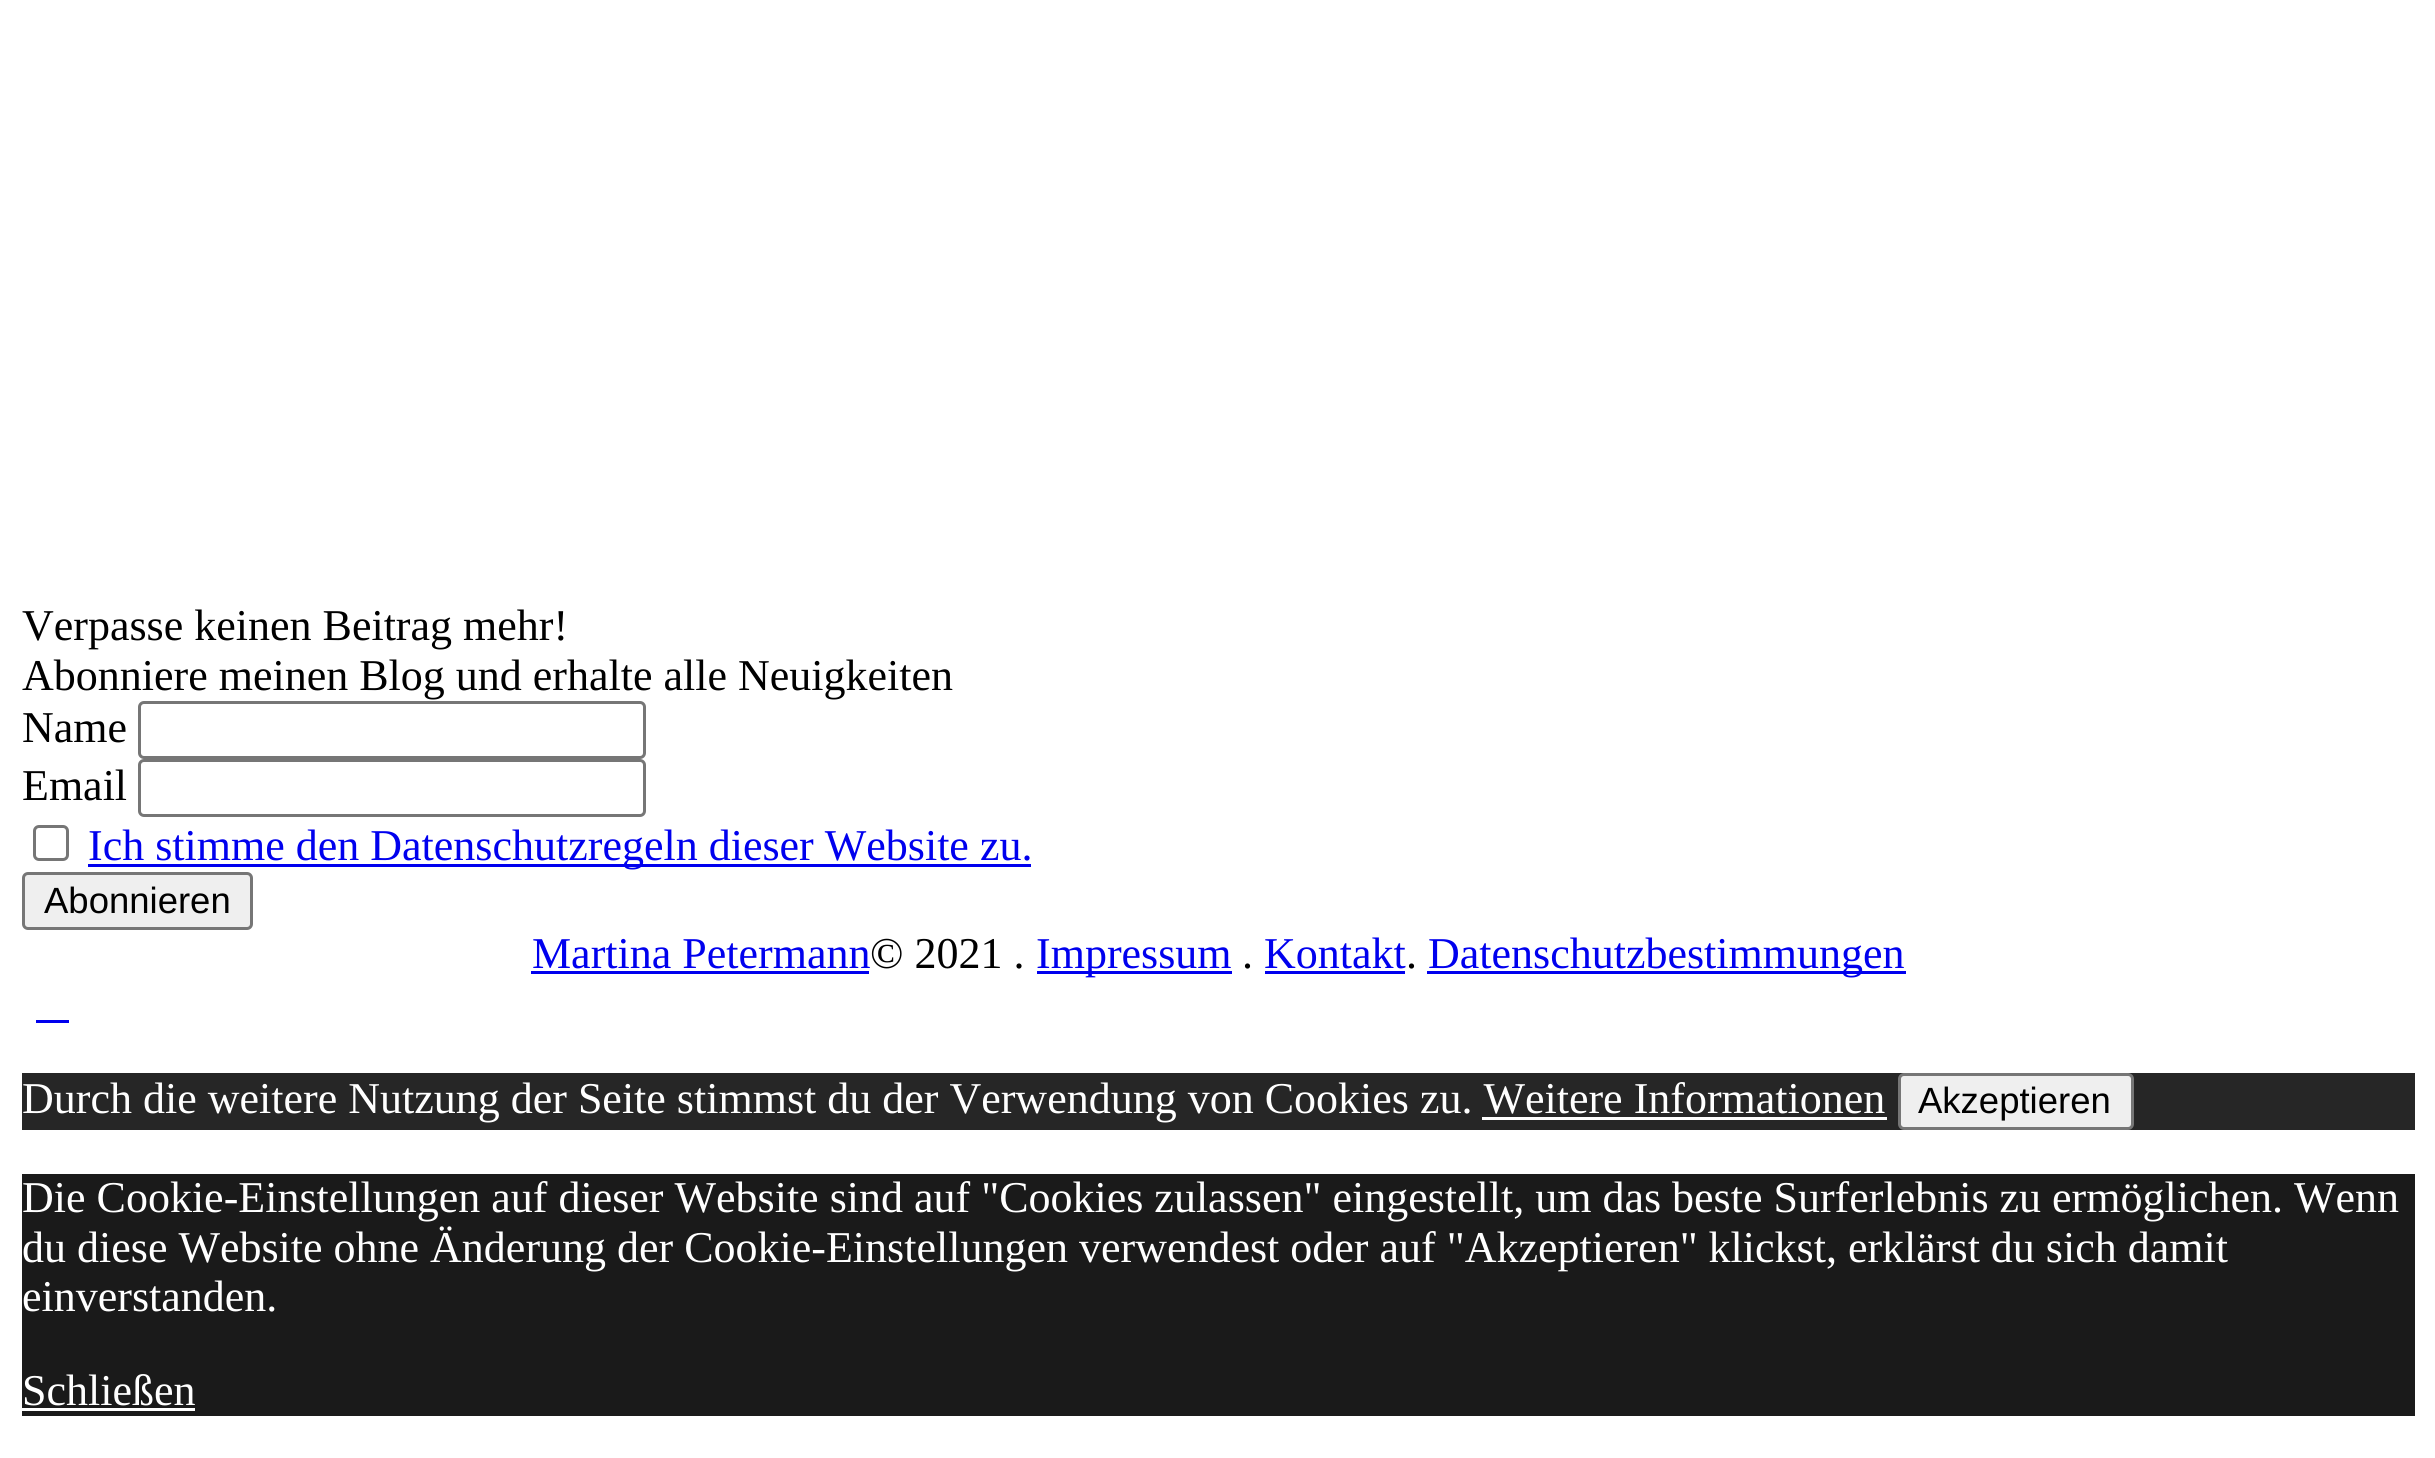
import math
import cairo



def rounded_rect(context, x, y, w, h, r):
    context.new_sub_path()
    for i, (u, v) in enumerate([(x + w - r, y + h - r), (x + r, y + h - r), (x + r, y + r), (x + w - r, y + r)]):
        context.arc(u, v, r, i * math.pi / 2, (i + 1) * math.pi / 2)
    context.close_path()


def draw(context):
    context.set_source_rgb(1, 1, 1)
    context.paint()
    rounded_rect(context, 139.5, 702.5, 505, 55, 4.5)
    context.set_source_rgb(118 / 255, 118 / 255, 118 / 255)
    context.set_line_width(3)
    context.stroke()
    rounded_rect(context, 139.5, 760.5, 505, 55, 4.5)
    context.stroke()
    rounded_rect(context, 34.5, 826.5, 33, 33, 4.5)
    context.stroke()
    context.set_source_rgb(0, 0, 238 / 255)
    context.rectangle(88, 864, 943, 3)
    context.fill()
    context.set_source_rgb(239 / 255, 239 / 255, 239 / 255)
    rounded_rect(context, 23.5, 873.5, 228, 55, 4.5)
    context.fill_preserve()
    context.set_source_rgb(118 / 255, 118 / 255, 118 / 255)
    context.stroke()
    context.set_source_rgb(0, 0, 238 / 255)
    context.rectangle(531, 971, 338, 3)
    context.fill()
    context.rectangle(1037, 971, 195, 3)
    context.fill()
    context.rectangle(1265, 971, 140, 3)
    context.fill()
    context.rectangle(1427, 971, 479, 3)
    context.fill()
    context.rectangle(36, 1020, 33, 3)
    context.fill()
    context.set_source_rgb(38 / 255, 38 / 255, 38 / 255)
    context.rectangle(22, 1073, 2393, 57)
    context.fill()
    context.set_source_rgb(239 / 255, 239 / 255, 239 / 255)
    rounded_rect(context, 1899.5, 1074.5, 233, 54, 4.5)
    context.fill_preserve()
    context.set_source_rgb(118 / 255, 118 / 255, 118 / 255)
    context.stroke()
    context.set_source_rgb(1, 1, 1)
    context.rectangle(1482, 1117, 405, 3)
    context.fill()
    context.set_source_rgb(26 / 255, 26 / 255, 26 / 255)
    context.rectangle(22, 1174, 2393, 242)
    context.fill()
    context.set_source_rgb(1, 1, 1)
    context.rectangle(22, 1408, 173, 3)
    context.fill()
    context.select_font_face("Liberation Serif")
    context.set_font_size(44)
    context.set_source_rgb(0, 0, 0)
    context.move_to(22, 640)
    context.show_text("Verpasse keinen Beitrag mehr!")
    context.move_to(22, 690)
    context.show_text("Abonniere meinen Blog und erhalte alle Neuigkeiten")
    context.move_to(22, 742)
    context.show_text("Name")
    context.move_to(22, 800)
    context.show_text("Email")
    context.set_source_rgb(0, 0, 238 / 255)
    context.move_to(88, 860)
    context.show_text("Ich stimme den Datenschutzregeln dieser Website zu.")
    context.select_font_face("Liberation Sans")
    context.set_font_size(36.5)
    context.set_source_rgb(0, 0, 0)
    context.move_to(44, 913)
    context.show_text("Abonnieren")
    context.select_font_face("Liberation Serif")
    context.set_font_size(44)
    context.set_source_rgb(0, 0, 238 / 255)
    context.move_to(532, 968)
    context.show_text("Martina Petermann")
    context.set_source_rgb(0, 0, 0)
    context.move_to(870, 968)
    context.show_text("© 2021 .")
    context.set_source_rgb(0, 0, 238 / 255)
    context.move_to(1036, 968)
    context.show_text("Impressum")
    context.set_source_rgb(0, 0, 0)
    context.move_to(1242, 968)
    context.show_text(".")
    context.set_source_rgb(0, 0, 238 / 255)
    context.move_to(1264, 968)
    context.show_text("Kontakt")
    context.set_source_rgb(0, 0, 0)
    context.move_to(1406, 968)
    context.show_text(".")
    context.set_source_rgb(0, 0, 238 / 255)
    context.move_to(1428, 968)
    context.show_text("Datenschutzbestimmungen")
    context.set_source_rgb(1, 1, 1)
    context.move_to(22, 1113)
    context.show_text("Durch die weitere Nutzung der Seite stimmst du der Verwendung von Cookies zu. Weitere Informationen")
    context.select_font_face("Liberation Sans")
    context.set_font_size(36.5)
    context.set_source_rgb(0, 0, 0)
    context.move_to(1918, 1113)
    context.show_text("Akzeptieren")
    context.select_font_face("Liberation Serif")
    context.set_font_size(44)
    context.set_source_rgb(1, 1, 1)
    context.move_to(22, 1212)
    context.show_text("Die Cookie-Einstellungen auf dieser Website sind auf \"Cookies zulassen\" eingestellt, um das beste Surferlebnis zu ermöglichen. Wenn")
    context.move_to(22, 1262)
    context.show_text("du diese Website ohne Änderung der Cookie-Einstellungen verwendest oder auf \"Akzeptieren\" klickst, erklärst du sich damit")
    context.move_to(22, 1311)
    context.show_text("einverstanden.")
    context.move_to(22, 1405)
    context.show_text("Schließen")


surface = cairo.ImageSurface(cairo.Format.RGB24, 2435, 1458)
context = cairo.Context(surface)
options = cairo.FontOptions()
options.set_hint_metrics(cairo.HintMetrics.OFF)
options.set_hint_style(cairo.HintStyle.NONE)
context.set_font_options(options)
context.set_miter_limit(4)
draw(context)
surface.write_to_png("out.png")
